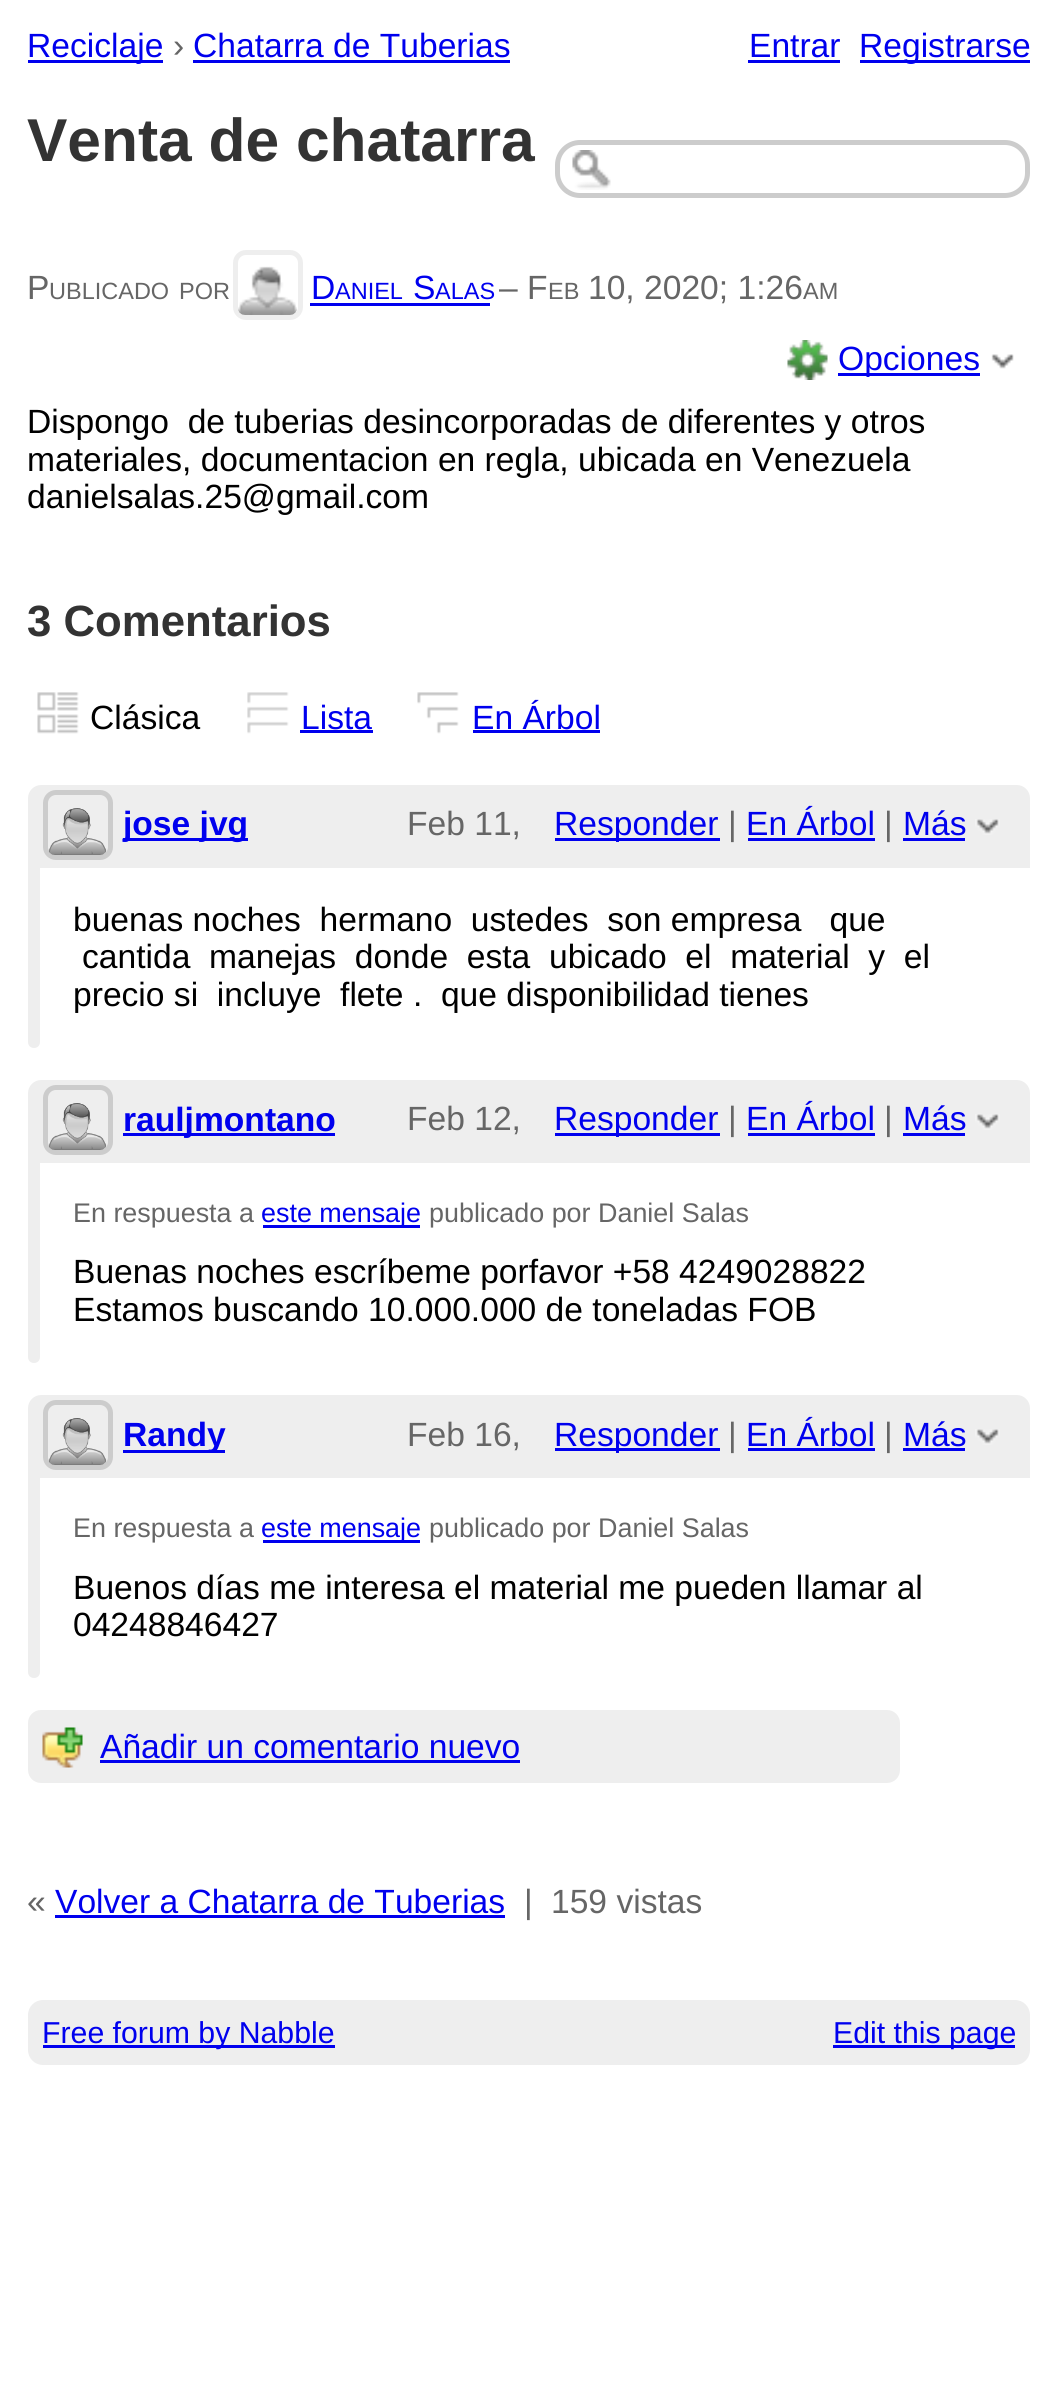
import math
import cairo



def rounded_rect(context, x, y, w, h, r):
    context.new_sub_path()
    for i, (u, v) in enumerate([(x + w - r, y + h - r), (x + r, y + h - r), (x + r, y + r), (x + w - r, y + r)]):
        context.arc(u, v, r, i * math.pi / 2, (i + 1) * math.pi / 2)
    context.close_path()


def draw_image(context, path, x, y, w, h):
    context.save()
    context.set_source_surface(cairo.ImageSurface.create_from_png(path), x, y)
    context.rectangle(x, y, w, h)
    context.fill()
    context.restore()


def draw(context):
    context.set_source_rgb(1, 1, 1)
    context.paint()
    context.set_source_rgb(0, 0, 238 / 255)
    context.rectangle(28, 60, 135, 3)
    context.fill()
    context.rectangle(193, 60, 317, 3)
    context.fill()
    context.rectangle(748, 60, 92, 3)
    context.fill()
    context.rectangle(860, 60, 170, 3)
    context.fill()
    draw_image(context, "images/1.png", 572, 150, 39, 40)
    rounded_rect(context, 557.5, 142.5, 470, 53, 22.5)
    context.set_source_rgb(204 / 255, 204 / 255, 204 / 255)
    context.set_line_width(5)
    context.stroke()
    rounded_rect(context, 235.5, 252.5, 65, 65, 10.5)
    context.set_source_rgb(238 / 255, 238 / 255, 238 / 255)
    context.stroke()
    draw_image(context, "images/2.png", 238, 266, 59, 49)
    context.set_source_rgb(0, 0, 238 / 255)
    context.rectangle(310, 303, 180, 3)
    context.fill()
    draw_image(context, "images/3.png", 787, 340, 41, 40)
    context.rectangle(838, 373, 142, 3)
    context.fill()
    draw_image(context, "images/4.png", 991, 354, 23, 15)
    draw_image(context, "images/5.png", 37, 692, 42, 42)
    draw_image(context, "images/6.png", 247, 692, 42, 42)
    context.rectangle(300, 730, 73, 3)
    context.fill()
    draw_image(context, "images/7.png", 417, 692, 42, 42)
    context.rectangle(473, 730, 127, 3)
    context.fill()
    context.set_source_rgb(238 / 255, 238 / 255, 238 / 255)
    context.new_path()
    context.move_to(41, 785)
    context.line_to(1017, 785)
    context.curve_to(1024, 785, 1030, 791, 1030, 798)
    context.line_to(1030, 868)
    context.line_to(28, 868)
    context.line_to(28, 798)
    context.curve_to(28, 791, 34, 785, 41, 785)
    context.close_path()
    context.fill()
    rounded_rect(context, 45.5, 792.5, 65, 65, 10.5)
    context.set_source_rgb(204 / 255, 204 / 255, 204 / 255)
    context.stroke()
    draw_image(context, "images/8.png", 48, 808, 59, 47)
    context.set_source_rgb(0, 0, 238 / 255)
    context.rectangle(123, 838, 125, 3)
    context.fill()
    context.rectangle(555, 838, 165, 3)
    context.fill()
    context.rectangle(748, 838, 127, 3)
    context.fill()
    context.rectangle(903, 838, 62, 3)
    context.fill()
    draw_image(context, "images/9.png", 975, 819, 25, 16)
    context.set_source_rgb(238 / 255, 238 / 255, 238 / 255)
    context.new_path()
    context.move_to(28, 868)
    context.line_to(40, 868)
    context.line_to(40, 1042)
    context.curve_to(40, 1045.5, 37.5, 1048, 34, 1048)
    context.curve_to(30.5, 1048, 28, 1045.5, 28, 1042)
    context.close_path()
    context.fill()
    context.new_path()
    context.move_to(41, 1080)
    context.line_to(1017, 1080)
    context.curve_to(1024, 1080, 1030, 1086, 1030, 1093)
    context.line_to(1030, 1163)
    context.line_to(28, 1163)
    context.line_to(28, 1093)
    context.curve_to(28, 1086, 34, 1080, 41, 1080)
    context.close_path()
    context.fill()
    rounded_rect(context, 45.5, 1087.5, 65, 65, 10.5)
    context.set_source_rgb(204 / 255, 204 / 255, 204 / 255)
    context.stroke()
    draw_image(context, "images/10.png", 48, 1103, 59, 47)
    context.set_source_rgb(0, 0, 238 / 255)
    context.rectangle(123, 1133, 212, 3)
    context.fill()
    context.rectangle(555, 1133, 165, 3)
    context.fill()
    context.rectangle(748, 1133, 127, 3)
    context.fill()
    context.rectangle(903, 1133, 62, 3)
    context.fill()
    draw_image(context, "images/9.png", 975, 1114, 25, 16)
    context.set_source_rgb(238 / 255, 238 / 255, 238 / 255)
    context.new_path()
    context.move_to(28, 1163)
    context.line_to(40, 1163)
    context.line_to(40, 1357)
    context.curve_to(40, 1360.5, 37.5, 1363, 34, 1363)
    context.curve_to(30.5, 1363, 28, 1360.5, 28, 1357)
    context.close_path()
    context.fill()
    context.set_source_rgb(0, 0, 238 / 255)
    context.rectangle(263, 1225, 157, 3)
    context.fill()
    context.set_source_rgb(238 / 255, 238 / 255, 238 / 255)
    context.new_path()
    context.move_to(41, 1395)
    context.line_to(1017, 1395)
    context.curve_to(1024, 1395, 1030, 1401, 1030, 1408)
    context.line_to(1030, 1478)
    context.line_to(28, 1478)
    context.line_to(28, 1408)
    context.curve_to(28, 1401, 34, 1395, 41, 1395)
    context.close_path()
    context.fill()
    rounded_rect(context, 45.5, 1402.5, 65, 65, 10.5)
    context.set_source_rgb(204 / 255, 204 / 255, 204 / 255)
    context.stroke()
    draw_image(context, "images/11.png", 48, 1418, 59, 47)
    context.set_source_rgb(0, 0, 238 / 255)
    context.rectangle(123, 1450, 102, 3)
    context.fill()
    context.rectangle(555, 1448, 165, 3)
    context.fill()
    context.rectangle(748, 1448, 127, 3)
    context.fill()
    context.rectangle(903, 1448, 62, 3)
    context.fill()
    draw_image(context, "images/9.png", 975, 1429, 25, 16)
    context.set_source_rgb(238 / 255, 238 / 255, 238 / 255)
    context.new_path()
    context.move_to(28, 1478)
    context.line_to(40, 1478)
    context.line_to(40, 1672)
    context.curve_to(40, 1675.5, 37.5, 1678, 34, 1678)
    context.curve_to(30.5, 1678, 28, 1675.5, 28, 1672)
    context.close_path()
    context.fill()
    context.set_source_rgb(0, 0, 238 / 255)
    context.rectangle(263, 1540, 157, 3)
    context.fill()
    context.set_source_rgb(238 / 255, 238 / 255, 238 / 255)
    rounded_rect(context, 28, 1710, 872, 73, 13)
    context.fill()
    draw_image(context, "images/12.png", 42, 1727, 41, 41)
    context.set_source_rgb(0, 0, 238 / 255)
    context.rectangle(100, 1760, 420, 3)
    context.fill()
    context.rectangle(55, 1915, 450, 3)
    context.fill()
    context.set_source_rgb(238 / 255, 238 / 255, 238 / 255)
    rounded_rect(context, 28, 2000, 1002, 65, 15)
    context.fill()
    context.set_source_rgb(0, 0, 238 / 255)
    context.rectangle(43, 2045, 292, 3)
    context.fill()
    context.rectangle(833, 2045, 182, 3)
    context.fill()
    context.select_font_face("Liberation Sans")
    context.set_font_size(33.6)
    context.move_to(27, 57)
    context.show_text("Reciclaje")
    context.set_source_rgb(102 / 255, 102 / 255, 102 / 255)
    context.move_to(173, 57)
    context.show_text("›")
    context.set_source_rgb(0, 0, 238 / 255)
    context.move_to(193, 57)
    context.show_text("Chatarra de Tuberias")
    context.move_to(749, 57)
    context.show_text("Entrar")
    context.move_to(859, 57)
    context.show_text("Registrarse")
    context.select_font_face("Liberation Sans", cairo.FontSlant.NORMAL, cairo.FontWeight.BOLD)
    context.set_font_size(60.5)
    context.set_source_rgb(51 / 255, 51 / 255, 51 / 255)
    context.move_to(27, 161)
    context.show_text("Venta de chatarra")
    context.select_font_face("Liberation Sans")
    context.set_font_size(33.6)
    context.set_source_rgb(102 / 255, 102 / 255, 102 / 255)
    context.move_to(27, 299)
    context.show_text("P")
    context.set_font_size(23.5)
    context.move_to(49, 299)
    context.show_text("UBLICADO")
    context.move_to(179, 299)
    context.show_text("POR")
    context.set_font_size(33.6)
    context.set_source_rgb(0, 0, 238 / 255)
    context.move_to(311, 299)
    context.show_text("D")
    context.set_font_size(23.5)
    context.move_to(335, 299)
    context.show_text("ANIEL")
    context.set_font_size(33.6)
    context.move_to(413, 299)
    context.show_text("S")
    context.set_font_size(23.5)
    context.move_to(435, 299)
    context.show_text("ALAS")
    context.set_font_size(33.6)
    context.set_source_rgb(102 / 255, 102 / 255, 102 / 255)
    context.move_to(499, 299)
    context.show_text("– F")
    context.set_font_size(23.5)
    context.move_to(548, 299)
    context.show_text("EB")
    context.set_font_size(33.6)
    context.move_to(588, 299)
    context.show_text("10, 2020; 1:26")
    context.set_font_size(23.5)
    context.move_to(803, 299)
    context.show_text("AM")
    context.set_font_size(33.6)
    context.set_source_rgb(0, 0, 238 / 255)
    context.move_to(838, 370)
    context.show_text("Opciones")
    context.set_source_rgb(0, 0, 0)
    context.move_to(27, 433)
    context.show_text("Dispongo  de tuberias desincorporadas de diferentes y otros")
    context.move_to(27, 471)
    context.show_text("materiales, documentacion en regla, ubicada en Venezuela")
    context.move_to(27, 508)
    context.show_text("danielsalas.25@gmail.com")
    context.select_font_face("Liberation Sans", cairo.FontSlant.NORMAL, cairo.FontWeight.BOLD)
    context.set_font_size(43.75)
    context.set_source_rgb(51 / 255, 51 / 255, 51 / 255)
    context.move_to(27, 636)
    context.show_text("3 Comentarios")
    context.select_font_face("Liberation Sans")
    context.set_font_size(33.6)
    context.set_source_rgb(0, 0, 0)
    context.move_to(90, 729)
    context.show_text("Clásica")
    context.set_source_rgb(0, 0, 238 / 255)
    context.move_to(301, 729)
    context.show_text("Lista")
    context.move_to(472, 729)
    context.show_text("En Árbol")
    context.select_font_face("Liberation Sans", cairo.FontSlant.NORMAL, cairo.FontWeight.BOLD)
    context.move_to(123, 835)
    context.show_text("jose jvg")
    context.select_font_face("Liberation Sans")
    context.set_source_rgb(102 / 255, 102 / 255, 102 / 255)
    context.move_to(407, 835)
    context.show_text("Feb 11,")
    context.set_source_rgb(0, 0, 238 / 255)
    context.move_to(554, 835)
    context.show_text("Responder")
    context.set_source_rgb(102 / 255, 102 / 255, 102 / 255)
    context.move_to(728, 835)
    context.show_text("|")
    context.set_source_rgb(0, 0, 238 / 255)
    context.move_to(746, 835)
    context.show_text("En Árbol")
    context.set_source_rgb(102 / 255, 102 / 255, 102 / 255)
    context.move_to(884, 835)
    context.show_text("|")
    context.set_source_rgb(0, 0, 238 / 255)
    context.move_to(903, 835)
    context.show_text("Más")
    context.set_source_rgb(0, 0, 0)
    context.move_to(73, 931)
    context.show_text("buenas noches  hermano  ustedes  son empresa   que")
    context.move_to(82, 968)
    context.show_text("cantida  manejas  donde  esta  ubicado  el  material  y  el")
    context.move_to(73, 1006)
    context.show_text("precio si  incluye  flete .  que disponibilidad tienes")
    context.select_font_face("Liberation Sans", cairo.FontSlant.NORMAL, cairo.FontWeight.BOLD)
    context.set_source_rgb(0, 0, 238 / 255)
    context.move_to(123, 1131)
    context.show_text("rauljmontano")
    context.select_font_face("Liberation Sans")
    context.set_source_rgb(102 / 255, 102 / 255, 102 / 255)
    context.move_to(407, 1130)
    context.show_text("Feb 12,")
    context.set_source_rgb(0, 0, 238 / 255)
    context.move_to(554, 1130)
    context.show_text("Responder")
    context.set_source_rgb(102 / 255, 102 / 255, 102 / 255)
    context.move_to(728, 1130)
    context.show_text("|")
    context.set_source_rgb(0, 0, 238 / 255)
    context.move_to(746, 1130)
    context.show_text("En Árbol")
    context.set_source_rgb(102 / 255, 102 / 255, 102 / 255)
    context.move_to(884, 1130)
    context.show_text("|")
    context.set_source_rgb(0, 0, 238 / 255)
    context.move_to(903, 1130)
    context.show_text("Más")
    context.set_font_size(26.9)
    context.set_source_rgb(102 / 255, 102 / 255, 102 / 255)
    context.move_to(73, 1222)
    context.show_text("En respuesta a")
    context.set_source_rgb(0, 0, 238 / 255)
    context.move_to(261, 1222)
    context.show_text("este mensaje")
    context.set_source_rgb(102 / 255, 102 / 255, 102 / 255)
    context.move_to(429, 1222)
    context.show_text("publicado por Daniel Salas")
    context.set_font_size(33.6)
    context.set_source_rgb(0, 0, 0)
    context.move_to(73, 1283)
    context.show_text("Buenas noches escríbeme porfavor +58 4249028822")
    context.move_to(73, 1321)
    context.show_text("Estamos buscando 10.000.000 de toneladas FOB")
    context.select_font_face("Liberation Sans", cairo.FontSlant.NORMAL, cairo.FontWeight.BOLD)
    context.set_source_rgb(0, 0, 238 / 255)
    context.move_to(123, 1446)
    context.show_text("Randy")
    context.select_font_face("Liberation Sans")
    context.set_source_rgb(102 / 255, 102 / 255, 102 / 255)
    context.move_to(407, 1446)
    context.show_text("Feb 16,")
    context.set_source_rgb(0, 0, 238 / 255)
    context.move_to(554, 1446)
    context.show_text("Responder")
    context.set_source_rgb(102 / 255, 102 / 255, 102 / 255)
    context.move_to(728, 1446)
    context.show_text("|")
    context.set_source_rgb(0, 0, 238 / 255)
    context.move_to(746, 1446)
    context.show_text("En Árbol")
    context.set_source_rgb(102 / 255, 102 / 255, 102 / 255)
    context.move_to(884, 1446)
    context.show_text("|")
    context.set_source_rgb(0, 0, 238 / 255)
    context.move_to(903, 1446)
    context.show_text("Más")
    context.set_font_size(26.9)
    context.set_source_rgb(102 / 255, 102 / 255, 102 / 255)
    context.move_to(73, 1537)
    context.show_text("En respuesta a")
    context.set_source_rgb(0, 0, 238 / 255)
    context.move_to(261, 1537)
    context.show_text("este mensaje")
    context.set_source_rgb(102 / 255, 102 / 255, 102 / 255)
    context.move_to(429, 1537)
    context.show_text("publicado por Daniel Salas")
    context.set_font_size(33.6)
    context.set_source_rgb(0, 0, 0)
    context.move_to(73, 1599)
    context.show_text("Buenos días me interesa el material me pueden llamar al")
    context.move_to(73, 1636)
    context.show_text("04248846427")
    context.set_source_rgb(0, 0, 238 / 255)
    context.move_to(100, 1758)
    context.show_text("Añadir un comentario nuevo")
    context.set_source_rgb(102 / 255, 102 / 255, 102 / 255)
    context.move_to(27, 1913)
    context.show_text("«")
    context.set_source_rgb(0, 0, 238 / 255)
    context.move_to(55, 1913)
    context.show_text("Volver a Chatarra de Tuberias")
    context.set_source_rgb(102 / 255, 102 / 255, 102 / 255)
    context.move_to(524, 1913)
    context.show_text("|")
    context.move_to(551, 1913)
    context.show_text("159 vistas")
    context.set_font_size(30.25)
    context.set_source_rgb(0, 0, 238 / 255)
    context.move_to(42, 2043)
    context.show_text("Free forum by Nabble")
    context.move_to(833, 2043)
    context.show_text("Edit this page")


surface = cairo.ImageSurface(cairo.Format.RGB24, 1056, 2400)
context = cairo.Context(surface)
options = cairo.FontOptions()
options.set_hint_metrics(cairo.HintMetrics.OFF)
options.set_hint_style(cairo.HintStyle.NONE)
context.set_font_options(options)
context.set_miter_limit(4)
draw(context)
surface.write_to_png("out.png")
